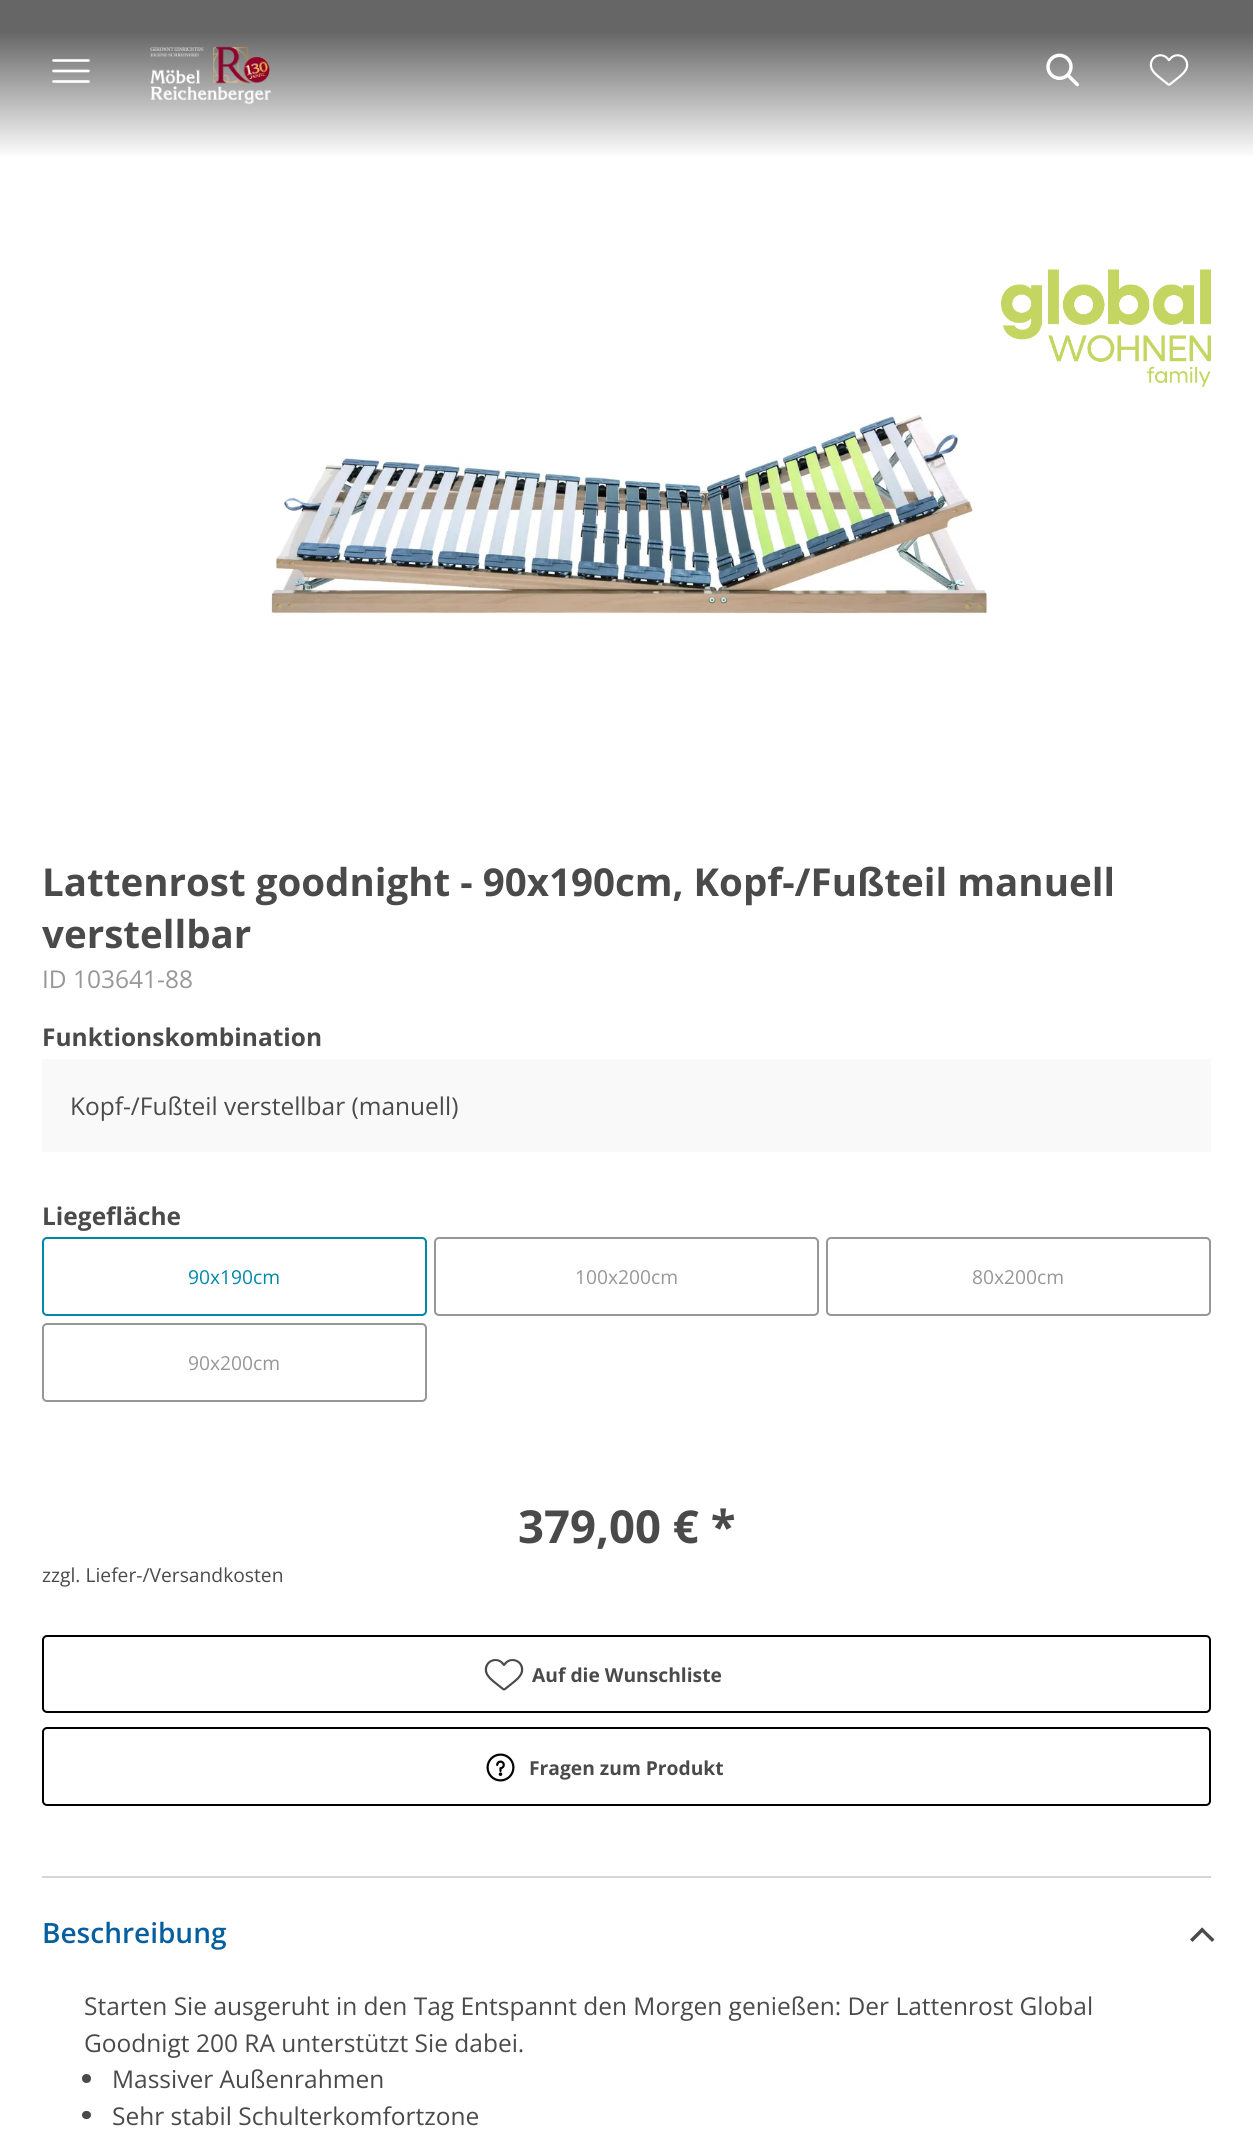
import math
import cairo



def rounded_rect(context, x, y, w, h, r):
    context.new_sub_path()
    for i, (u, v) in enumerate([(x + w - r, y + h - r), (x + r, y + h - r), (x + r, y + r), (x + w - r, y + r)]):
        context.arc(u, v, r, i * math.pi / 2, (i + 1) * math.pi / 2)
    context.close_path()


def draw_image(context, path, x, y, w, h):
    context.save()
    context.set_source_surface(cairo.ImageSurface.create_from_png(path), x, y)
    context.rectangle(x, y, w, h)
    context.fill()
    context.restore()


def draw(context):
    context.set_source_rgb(1, 1, 1)
    context.paint()
    gradient = cairo.LinearGradient(627, 158, 627, 0)
    gradient.add_color_stop_rgba(0, 1, 1, 1, 1)
    gradient.add_color_stop_rgba(0.8, 102 / 255, 102 / 255, 102 / 255, 1)
    context.set_source(gradient)
    context.rectangle(0, 0, 1253, 156)
    context.fill()
    context.new_path()
    context.move_to(53.5, 71)
    context.line_to(88.5, 71)
    context.move_to(53.5, 60.5)
    context.line_to(88.5, 60.5)
    context.move_to(53.5, 81.5)
    context.line_to(88.5, 81.5)
    context.set_source_rgb(1, 1, 1)
    context.set_line_width(2.6)
    context.set_line_cap(cairo.LineCap.ROUND)
    context.stroke()
    draw_image(context, "images/1.png", 150, 46, 121, 59)
    draw_image(context, "images/2.png", 1046, 53, 33, 34)
    draw_image(context, "images/3.png", 1149, 54, 40, 32)
    draw_image(context, "images/4.png", 1001, 269, 210, 118)
    draw_image(context, "images/5.png", 270, 414, 718, 202)
    context.set_source_rgb(249 / 255, 249 / 255, 249 / 255)
    context.rectangle(42, 1059, 1169, 93)
    context.fill()
    rounded_rect(context, 43, 1238, 383, 77, 4)
    context.set_source_rgb(0, 135 / 255, 169 / 255)
    context.set_line_width(2)
    context.set_line_cap(cairo.LineCap.BUTT)
    context.stroke()
    rounded_rect(context, 435, 1238, 383, 77, 4)
    context.set_source_rgb(151 / 255, 151 / 255, 151 / 255)
    context.stroke()
    rounded_rect(context, 827, 1238, 383, 77, 4)
    context.stroke()
    rounded_rect(context, 43, 1324, 383, 77, 4)
    context.stroke()
    rounded_rect(context, 43, 1636, 1167, 76, 4)
    context.set_source_rgb(0, 0, 0)
    context.stroke()
    draw_image(context, "images/6.png", 484, 1659, 40, 32)
    rounded_rect(context, 43, 1728, 1167, 77, 4)
    context.stroke()
    draw_image(context, "images/7.png", 486, 1753, 29, 29)
    context.set_source_rgb(211 / 255, 214 / 255, 219 / 255)
    context.rectangle(42, 1876, 1169, 2)
    context.fill()
    context.set_source_rgb(74 / 255, 74 / 255, 74 / 255)
    context.new_path()
    context.move_to(1204.5, 1930)
    context.line_to(1192.5, 1942)
    context.line_to(1190, 1939.5)
    context.line_to(1202, 1927.5)
    context.close_path()
    context.fill()
    context.new_path()
    context.move_to(1214.5, 1939.5)
    context.line_to(1212, 1942)
    context.line_to(1200, 1930)
    context.line_to(1202, 1927.5)
    context.close_path()
    context.fill()
    context.arc(86.5, 2078.5, 4.5, 0, 2 * math.pi)
    context.fill()
    rounded_rect(context, 82, 2111, 9, 8, 4)
    context.fill()
    context.select_font_face("Open Sans", cairo.FontSlant.NORMAL, cairo.FontWeight.BOLD)
    context.set_font_size(38.5)
    context.move_to(42, 896)
    context.show_text("Lattenrost goodnight - 90x190cm, Kopf-/Fußteil manuell")
    context.move_to(42, 948)
    context.show_text("verstellbar")
    context.select_font_face("Open Sans")
    context.set_font_size(24.5)
    context.set_source_rgb(151 / 255, 151 / 255, 151 / 255)
    context.move_to(42, 988)
    context.show_text("ID 103641-88")
    context.select_font_face("Open Sans", cairo.FontSlant.NORMAL, cairo.FontWeight.BOLD)
    context.set_source_rgb(74 / 255, 74 / 255, 74 / 255)
    context.move_to(42, 1046)
    context.show_text("Funktionskombination")
    context.select_font_face("Open Sans")
    context.move_to(70, 1115)
    context.show_text("Kopf-/Fußteil verstellbar (manuell)")
    context.select_font_face("Open Sans", cairo.FontSlant.NORMAL, cairo.FontWeight.BOLD)
    context.move_to(42, 1225)
    context.show_text("Liegefläche")
    context.select_font_face("Open Sans")
    context.set_font_size(19.25)
    context.set_source_rgb(0, 135 / 255, 169 / 255)
    context.move_to(188, 1284)
    context.show_text("90x190cm")
    context.set_source_rgb(151 / 255, 151 / 255, 151 / 255)
    context.move_to(575, 1284)
    context.show_text("100x200cm")
    context.move_to(972, 1284)
    context.show_text("80x200cm")
    context.move_to(188, 1370)
    context.show_text("90x200cm")
    context.select_font_face("Open Sans", cairo.FontSlant.NORMAL, cairo.FontWeight.BOLD)
    context.set_font_size(45.5)
    context.set_source_rgb(74 / 255, 74 / 255, 74 / 255)
    context.move_to(518, 1543)
    context.show_text("379,00 € *")
    context.select_font_face("Open Sans")
    context.set_font_size(19.25)
    context.move_to(42, 1582)
    context.show_text("zzgl. Liefer-/Versandkosten")
    context.select_font_face("Open Sans", cairo.FontSlant.NORMAL, cairo.FontWeight.BOLD)
    context.move_to(532, 1682)
    context.show_text("Auf die Wunschliste")
    context.move_to(529, 1775)
    context.show_text("Fragen zum Produkt")
    context.select_font_face("Open Sans SemiBold")
    context.set_font_size(28)
    context.set_source_rgb(5 / 255, 95 / 255, 159 / 255)
    context.move_to(42, 1943)
    context.show_text("Beschreibung")
    context.select_font_face("Open Sans")
    context.set_font_size(24.5)
    context.set_source_rgb(74 / 255, 74 / 255, 74 / 255)
    context.move_to(84, 2015)
    context.show_text("Starten Sie ausgeruht in den Tag Entspannt den Morgen genießen: Der Lattenrost Global")
    context.move_to(84, 2052)
    context.show_text("Goodnigt 200 RA unterstützt Sie dabei.")
    context.move_to(112, 2088)
    context.show_text("Massiver Außenrahmen")
    context.move_to(112, 2125)
    context.show_text("Sehr stabil Schulterkomfortzone")


surface = cairo.ImageSurface(cairo.Format.RGB24, 1253, 2132)
context = cairo.Context(surface)
options = cairo.FontOptions()
options.set_hint_metrics(cairo.HintMetrics.OFF)
options.set_hint_style(cairo.HintStyle.NONE)
context.set_font_options(options)
context.set_miter_limit(4)
draw(context)
surface.write_to_png("out.png")
